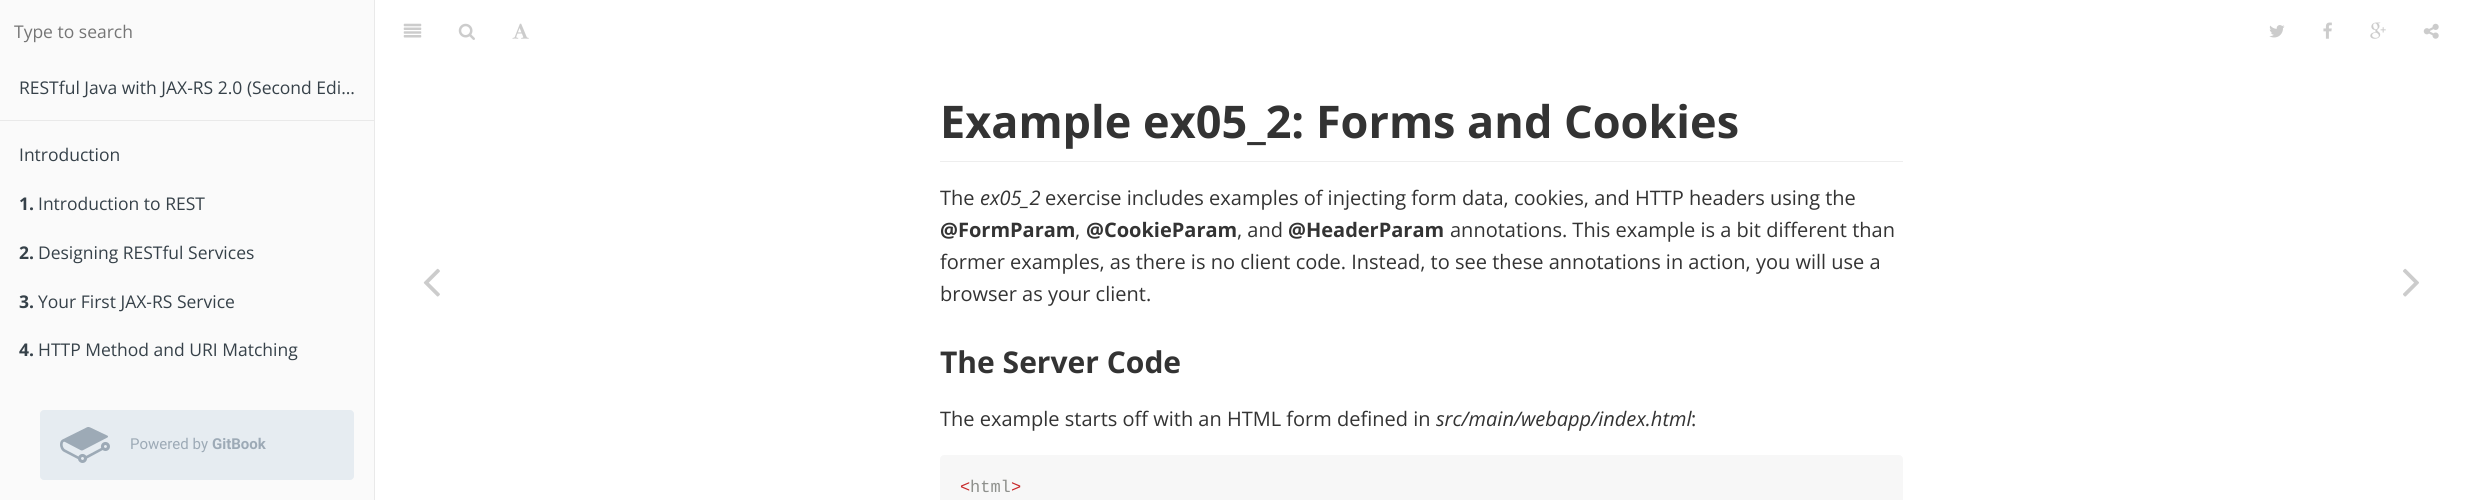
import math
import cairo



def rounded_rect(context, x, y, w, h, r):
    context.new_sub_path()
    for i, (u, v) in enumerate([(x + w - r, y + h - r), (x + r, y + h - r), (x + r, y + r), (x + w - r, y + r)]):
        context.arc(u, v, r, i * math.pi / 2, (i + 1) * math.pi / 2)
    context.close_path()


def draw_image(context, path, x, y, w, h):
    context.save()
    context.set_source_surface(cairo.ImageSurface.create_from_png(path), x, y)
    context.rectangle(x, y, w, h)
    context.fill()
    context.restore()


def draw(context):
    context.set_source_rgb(1, 1, 1)
    context.paint()
    context.set_source_rgb(250 / 255, 250 / 255, 250 / 255)
    context.rectangle(0, 0, 374, 500)
    context.fill()
    context.set_source_rgb(233 / 255, 233 / 255, 233 / 255)
    context.rectangle(374, 0, 1, 500)
    context.fill()
    context.rectangle(0, 120, 374, 1)
    context.fill()
    context.set_source_rgb(230 / 255, 236 / 255, 241 / 255)
    rounded_rect(context, 40, 410, 314, 70, 4)
    context.fill()
    draw_image(context, "images/1.png", 60, 427, 50, 36)
    draw_image(context, "images/2.png", 423, 268, 17, 29)
    draw_image(context, "images/3.png", 403, 23, 19, 15)
    draw_image(context, "images/4.png", 458, 23, 17, 17)
    draw_image(context, "images/5.png", 512, 23, 17, 16)
    draw_image(context, "images/6.png", 2269, 25, 16, 13)
    draw_image(context, "images/7.png", 2323, 22, 9, 17)
    draw_image(context, "images/8.png", 2370, 22, 16, 17)
    draw_image(context, "images/9.png", 2423, 23, 16, 16)
    context.set_source_rgb(238 / 255, 238 / 255, 238 / 255)
    context.rectangle(940, 161, 963, 1)
    context.fill()
    context.set_source_rgb(247 / 255, 247 / 255, 247 / 255)
    context.new_path()
    context.move_to(944, 455)
    context.line_to(1899, 455)
    context.curve_to(1901, 455, 1903, 457, 1903, 459)
    context.line_to(1903, 500)
    context.line_to(940, 500)
    context.line_to(940, 459)
    context.curve_to(940, 457, 942, 455, 944, 455)
    context.close_path()
    context.fill()
    draw_image(context, "images/10.png", 2403, 268, 16, 29)
    context.select_font_face("Open Sans")
    context.set_font_size(17.5)
    context.set_source_rgb(117 / 255, 117 / 255, 117 / 255)
    context.move_to(14, 38)
    context.show_text("Type to search")
    context.set_source_rgb(54 / 255, 65 / 255, 73 / 255)
    context.move_to(19, 94)
    context.show_text("RESTful Java with JAX-RS 2.0 (Second Edi…")
    context.move_to(19, 161)
    context.show_text("Introduction")
    context.select_font_face("Open Sans", cairo.FontSlant.NORMAL, cairo.FontWeight.BOLD)
    context.move_to(19, 210)
    context.show_text("1.")
    context.select_font_face("Open Sans")
    context.move_to(38, 210)
    context.show_text("Introduction to REST")
    context.select_font_face("Open Sans", cairo.FontSlant.NORMAL, cairo.FontWeight.BOLD)
    context.move_to(19, 259)
    context.show_text("2.")
    context.select_font_face("Open Sans")
    context.move_to(38, 259)
    context.show_text("Designing RESTful Services")
    context.select_font_face("Open Sans", cairo.FontSlant.NORMAL, cairo.FontWeight.BOLD)
    context.move_to(19, 308)
    context.show_text("3.")
    context.select_font_face("Open Sans")
    context.move_to(38, 308)
    context.show_text("Your First JAX-RS Service")
    context.select_font_face("Open Sans", cairo.FontSlant.NORMAL, cairo.FontWeight.BOLD)
    context.move_to(19, 356)
    context.show_text("4.")
    context.select_font_face("Open Sans")
    context.move_to(38, 356)
    context.show_text("HTTP Method and URI Matching")
    context.select_font_face("Roboto")
    context.set_font_size(15)
    context.set_source_rgb(157 / 255, 170 / 255, 182 / 255)
    context.move_to(130, 449)
    context.show_text("Powered by")
    context.select_font_face("Roboto", cairo.FontSlant.NORMAL, cairo.FontWeight.BOLD)
    context.move_to(212, 449)
    context.show_text("GitBook")
    context.select_font_face("Open Sans", cairo.FontSlant.NORMAL, cairo.FontWeight.BOLD)
    context.set_font_size(45)
    context.set_source_rgb(51 / 255, 51 / 255, 51 / 255)
    context.move_to(940, 138)
    context.show_text("Example ex05_2: Forms and Cookies")
    context.select_font_face("Open Sans")
    context.set_font_size(20)
    context.move_to(940, 205)
    context.show_text("The")
    context.select_font_face("Open Sans", cairo.FontSlant.ITALIC)
    context.move_to(980, 205)
    context.show_text("ex05_2")
    context.select_font_face("Open Sans")
    context.move_to(1045, 205)
    context.show_text("exercise includes examples of injecting form data, cookies, and HTTP headers using the")
    context.select_font_face("Open Sans", cairo.FontSlant.NORMAL, cairo.FontWeight.BOLD)
    context.move_to(940, 237)
    context.show_text("@FormParam")
    context.select_font_face("Open Sans")
    context.move_to(1075, 237)
    context.show_text(",")
    context.select_font_face("Open Sans", cairo.FontSlant.NORMAL, cairo.FontWeight.BOLD)
    context.move_to(1086, 237)
    context.show_text("@CookieParam")
    context.select_font_face("Open Sans")
    context.move_to(1237, 237)
    context.show_text(", and")
    context.select_font_face("Open Sans", cairo.FontSlant.NORMAL, cairo.FontWeight.BOLD)
    context.move_to(1288, 237)
    context.show_text("@HeaderParam")
    context.select_font_face("Open Sans")
    context.move_to(1450, 237)
    context.show_text("annotations. This example is a bit different than")
    context.move_to(940, 269)
    context.show_text("former examples, as there is no client code. Instead, to see these annotations in action, you will use a")
    context.move_to(940, 301)
    context.show_text("browser as your client.")
    context.select_font_face("Open Sans", cairo.FontSlant.NORMAL, cairo.FontWeight.BOLD)
    context.set_font_size(30)
    context.move_to(940, 373)
    context.show_text("The Server Code")
    context.select_font_face("Open Sans")
    context.set_font_size(20)
    context.move_to(940, 426)
    context.show_text("The example starts off with an HTML form defined in")
    context.select_font_face("Open Sans", cairo.FontSlant.ITALIC)
    context.move_to(1436, 426)
    context.show_text("src/main/webapp/index.html")
    context.select_font_face("Open Sans")
    context.move_to(1691, 426)
    context.show_text(":")
    context.select_font_face("Liberation Mono")
    context.set_font_size(17)
    context.set_source_rgb(200 / 255, 40 / 255, 41 / 255)
    context.move_to(960, 492)
    context.show_text("<")
    context.set_source_rgb(142 / 255, 144 / 255, 140 / 255)
    context.move_to(970, 492)
    context.show_text("html")
    context.set_source_rgb(200 / 255, 40 / 255, 41 / 255)
    context.move_to(1011, 492)
    context.show_text(">")


surface = cairo.ImageSurface(cairo.Format.RGB24, 2467, 500)
context = cairo.Context(surface)
options = cairo.FontOptions()
options.set_hint_metrics(cairo.HintMetrics.OFF)
options.set_hint_style(cairo.HintStyle.NONE)
context.set_font_options(options)
context.set_miter_limit(4)
draw(context)
surface.write_to_png("out.png")
